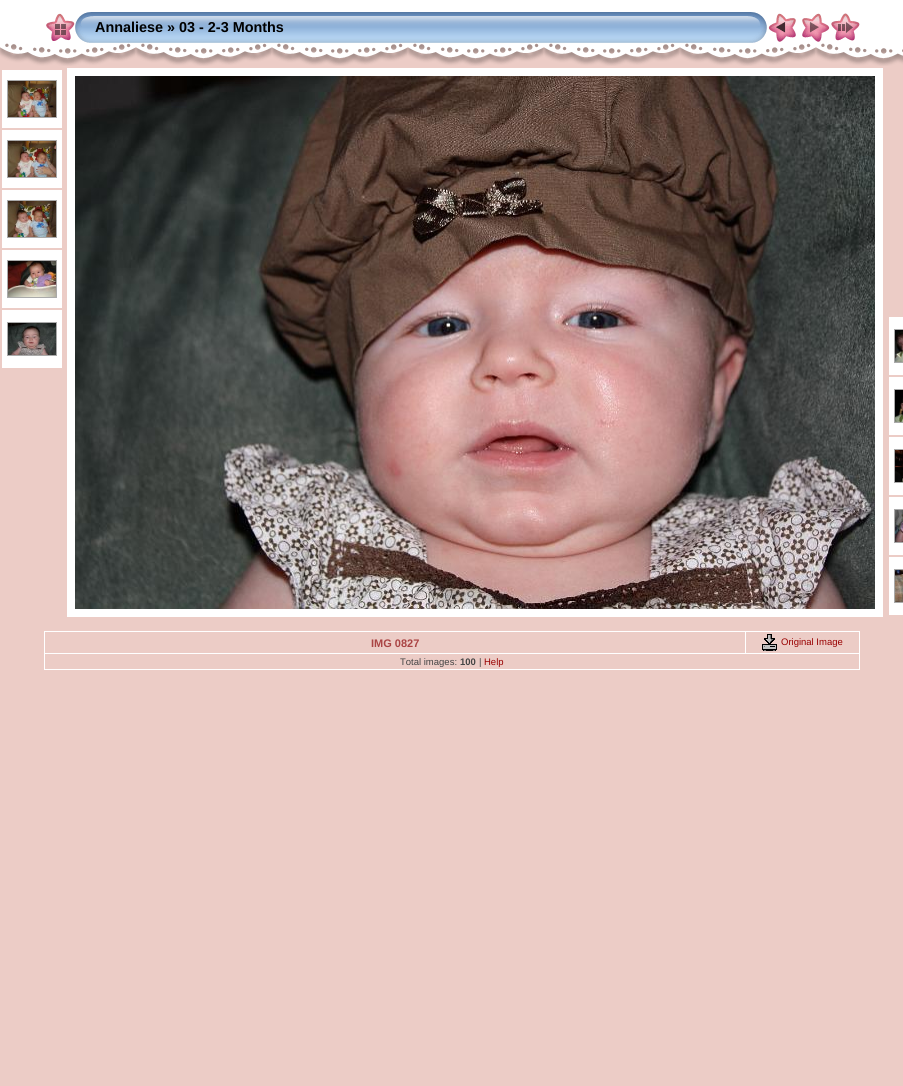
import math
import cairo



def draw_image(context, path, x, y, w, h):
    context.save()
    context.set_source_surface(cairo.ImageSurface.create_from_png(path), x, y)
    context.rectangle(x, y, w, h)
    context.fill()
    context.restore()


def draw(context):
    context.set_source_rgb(236 / 255, 204 / 255, 198 / 255)
    context.paint()
    draw_image(context, "images/1.png", 0, 0, 903, 66)
    draw_image(context, "images/2.png", 46, 13, 29, 28)
    draw_image(context, "images/3.png", 75, 12, 20, 31)
    draw_image(context, "images/4.png", 95, 12, 652, 31)
    draw_image(context, "images/5.png", 747, 12, 20, 31)
    draw_image(context, "images/6.png", 768, 13, 28, 29)
    draw_image(context, "images/7.png", 802, 13, 27, 29)
    draw_image(context, "images/8.png", 829, 13, 31, 28)
    context.set_source_rgb(1, 1, 1)
    context.rectangle(2, 70, 60, 58)
    context.fill()
    context.rectangle(7.5, 80.5, 49, 37)
    context.set_source_rgb(170 / 255, 170 / 255, 170 / 255)
    context.set_line_width(1)
    context.stroke()
    draw_image(context, "images/9.png", 8, 81, 48, 36)
    context.set_source_rgb(1, 1, 1)
    context.rectangle(2, 130, 60, 58)
    context.fill()
    context.rectangle(7.5, 140.5, 49, 37)
    context.set_source_rgb(170 / 255, 170 / 255, 170 / 255)
    context.stroke()
    draw_image(context, "images/10.png", 8, 141, 48, 36)
    context.set_source_rgb(1, 1, 1)
    context.rectangle(2, 190, 60, 58)
    context.fill()
    context.rectangle(7.5, 200.5, 49, 37)
    context.set_source_rgb(170 / 255, 170 / 255, 170 / 255)
    context.stroke()
    draw_image(context, "images/11.png", 8, 201, 48, 36)
    context.set_source_rgb(1, 1, 1)
    context.rectangle(2, 250, 60, 58)
    context.fill()
    context.rectangle(7.5, 260.5, 49, 37)
    context.set_source_rgb(170 / 255, 170 / 255, 170 / 255)
    context.stroke()
    draw_image(context, "images/12.png", 8, 261, 48, 36)
    context.set_source_rgb(1, 1, 1)
    context.rectangle(2, 310, 60, 58)
    context.fill()
    context.rectangle(7.5, 322.5, 49, 33)
    context.set_source_rgb(170 / 255, 170 / 255, 170 / 255)
    context.stroke()
    draw_image(context, "images/13.png", 8, 323, 48, 32)
    context.rectangle(71, 72, 808, 541)
    context.set_source_rgb(1, 1, 1)
    context.set_line_width(8)
    context.stroke()
    draw_image(context, "images/14.png", 75, 76, 800, 533)
    context.rectangle(889, 317, 14, 58)
    context.fill()
    context.rectangle(894.5, 329.5, 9, 33)
    context.set_source_rgb(170 / 255, 170 / 255, 170 / 255)
    context.set_line_width(1)
    context.stroke()
    draw_image(context, "images/15.png", 895, 330, 8, 32)
    context.set_source_rgb(1, 1, 1)
    context.rectangle(889, 377, 14, 58)
    context.fill()
    context.rectangle(894.5, 389.5, 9, 33)
    context.set_source_rgb(170 / 255, 170 / 255, 170 / 255)
    context.stroke()
    draw_image(context, "images/16.png", 895, 390, 8, 32)
    context.set_source_rgb(1, 1, 1)
    context.rectangle(889, 437, 14, 58)
    context.fill()
    context.rectangle(894.5, 449.5, 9, 33)
    context.set_source_rgb(170 / 255, 170 / 255, 170 / 255)
    context.stroke()
    draw_image(context, "images/17.png", 895, 450, 8, 32)
    context.set_source_rgb(1, 1, 1)
    context.rectangle(889, 497, 14, 58)
    context.fill()
    context.rectangle(894.5, 509.5, 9, 33)
    context.set_source_rgb(170 / 255, 170 / 255, 170 / 255)
    context.stroke()
    draw_image(context, "images/18.png", 895, 510, 8, 32)
    context.set_source_rgb(1, 1, 1)
    context.rectangle(889, 557, 14, 58)
    context.fill()
    context.rectangle(894.5, 569.5, 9, 33)
    context.set_source_rgb(170 / 255, 170 / 255, 170 / 255)
    context.stroke()
    draw_image(context, "images/19.png", 895, 570, 8, 32)
    context.set_source_rgb(1, 1, 1)
    context.rectangle(44, 631, 816, 1)
    context.fill()
    context.rectangle(859, 631, 1, 39)
    context.fill()
    context.rectangle(44, 669, 816, 1)
    context.fill()
    context.rectangle(44, 631, 1, 39)
    context.fill()
    context.rectangle(44, 653, 816, 1)
    context.fill()
    context.rectangle(745, 631, 1, 23)
    context.fill()
    draw_image(context, "images/20.png", 762, 634, 15, 17)
    context.select_font_face("Liberation Sans", cairo.FontSlant.NORMAL, cairo.FontWeight.BOLD)
    context.set_font_size(14.4)
    context.set_source_rgb(0, 0, 0)
    context.move_to(95, 32)
    context.show_text("Annaliese » 03 - 2-3 Months")
    context.set_font_size(11)
    context.set_source_rgb(170 / 255, 68 / 255, 68 / 255)
    context.move_to(371, 647)
    context.show_text("IMG 0827")
    context.select_font_face("Liberation Sans")
    context.set_font_size(9.5)
    context.set_source_rgb(153 / 255, 0, 0)
    context.move_to(781, 645)
    context.show_text("Original Image")
    context.set_source_rgb(68 / 255, 68 / 255, 68 / 255)
    context.move_to(400, 665)
    context.show_text("Total images:")
    context.select_font_face("Liberation Sans", cairo.FontSlant.NORMAL, cairo.FontWeight.BOLD)
    context.move_to(460, 665)
    context.show_text("100")
    context.select_font_face("Liberation Sans")
    context.move_to(479, 665)
    context.show_text("|")
    context.set_source_rgb(153 / 255, 0, 0)
    context.move_to(484, 665)
    context.show_text("Help")


surface = cairo.ImageSurface(cairo.Format.RGB24, 903, 1086)
context = cairo.Context(surface)
options = cairo.FontOptions()
options.set_hint_metrics(cairo.HintMetrics.OFF)
options.set_hint_style(cairo.HintStyle.NONE)
context.set_font_options(options)
context.set_miter_limit(4)
draw(context)
surface.write_to_png("out.png")
